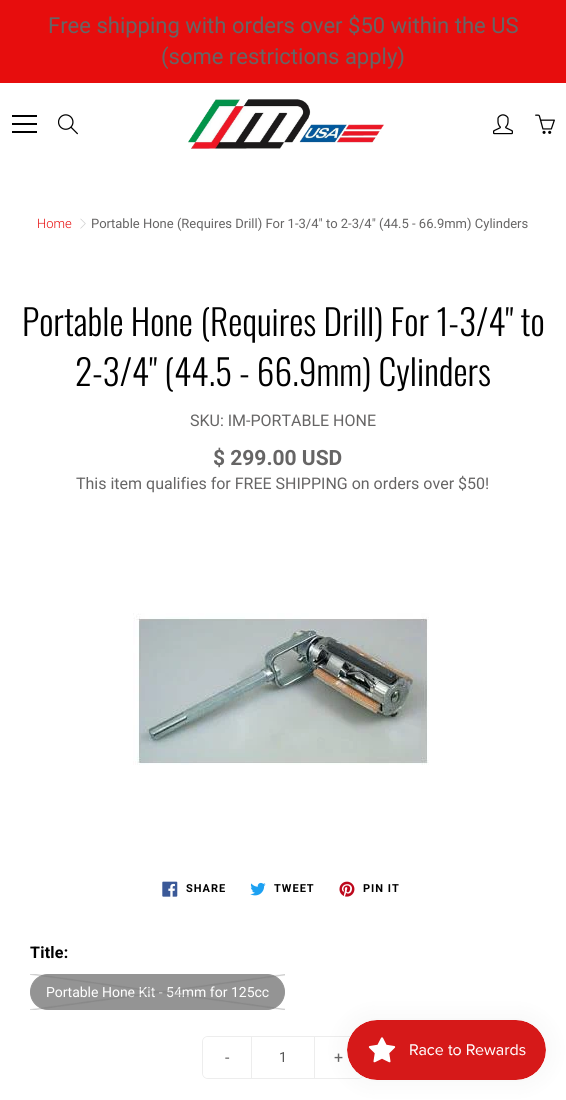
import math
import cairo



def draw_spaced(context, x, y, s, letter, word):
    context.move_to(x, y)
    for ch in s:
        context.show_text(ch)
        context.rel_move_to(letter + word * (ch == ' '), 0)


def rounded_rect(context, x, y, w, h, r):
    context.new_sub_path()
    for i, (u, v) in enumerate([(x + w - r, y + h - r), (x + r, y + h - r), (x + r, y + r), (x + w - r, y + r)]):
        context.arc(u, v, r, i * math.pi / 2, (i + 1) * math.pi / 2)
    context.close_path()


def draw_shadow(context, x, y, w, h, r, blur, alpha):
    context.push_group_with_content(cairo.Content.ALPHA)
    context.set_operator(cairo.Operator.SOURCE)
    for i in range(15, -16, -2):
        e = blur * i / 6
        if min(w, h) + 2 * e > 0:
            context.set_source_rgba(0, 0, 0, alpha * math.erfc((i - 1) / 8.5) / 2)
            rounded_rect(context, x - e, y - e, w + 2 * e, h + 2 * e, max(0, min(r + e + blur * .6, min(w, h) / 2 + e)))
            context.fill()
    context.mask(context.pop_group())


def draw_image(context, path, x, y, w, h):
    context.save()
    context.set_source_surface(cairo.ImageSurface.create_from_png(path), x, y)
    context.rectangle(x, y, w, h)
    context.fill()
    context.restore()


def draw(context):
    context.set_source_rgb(1, 1, 1)
    context.paint()
    context.set_source_rgb(231 / 255, 13 / 255, 13 / 255)
    context.rectangle(0, 0, 566, 83)
    context.fill()
    context.set_source_rgb(0, 0, 0)
    context.rectangle(12, 123, 25, 2)
    context.fill()
    context.rectangle(12, 115, 25, 2)
    context.fill()
    context.rectangle(12, 131, 25, 2)
    context.fill()
    draw_image(context, "images/1.png", 58, 114, 20, 21)
    draw_image(context, "images/2.png", 188, 99, 196, 50)
    draw_image(context, "images/3.png", 493, 114, 20, 21)
    draw_image(context, "images/4.png", 535, 114, 20, 20)
    draw_image(context, "images/5.png", 80, 218, 6, 11)
    draw_image(context, "images/6.png", 133, 613, 296, 152)
    draw_image(context, "images/7.png", 162, 881, 16, 16)
    draw_image(context, "images/8.png", 250, 882, 16, 14)
    draw_image(context, "images/9.png", 339, 881, 16, 16)
    context.set_source_rgb(148 / 255, 148 / 255, 148 / 255)
    rounded_rect(context, 30.5, 974.5, 254, 35, 17.5)
    context.fill_preserve()
    context.set_line_width(1)
    context.stroke()
    rounded_rect(context, 202.5, 1036.5, 161, 42, 5.5)
    context.set_source_rgb(237 / 255, 237 / 255, 237 / 255)
    context.stroke()
    context.set_source_rgb(1, 1, 1)
    context.new_path()
    context.move_to(208, 1037)
    context.line_to(251, 1037)
    context.line_to(251, 1078)
    context.line_to(208, 1078)
    context.curve_to(205, 1078, 203, 1076, 203, 1073)
    context.line_to(203, 1042)
    context.curve_to(203, 1039, 205, 1037, 208, 1037)
    context.close_path()
    context.fill()
    context.set_source_rgb(237 / 255, 237 / 255, 237 / 255)
    context.rectangle(314, 1037, 1, 41)
    context.fill()
    context.rectangle(251, 1037, 1, 41)
    context.fill()
    context.set_source_rgb(1, 1, 1)
    context.new_path()
    context.move_to(315, 1037)
    context.line_to(358, 1037)
    context.curve_to(361, 1037, 363, 1039, 363, 1042)
    context.line_to(363, 1073)
    context.curve_to(363, 1076, 361, 1078, 358, 1078)
    context.line_to(315, 1078)
    context.close_path()
    context.fill()
    context.set_source_rgb(0, 0, 0)
    draw_shadow(context, 347, 1020, 199, 60, 30, 12.5, 0.05)
    draw_image(context, "images/11.png", 347, 1020, 199, 60)
    context.select_font_face("Roboto")
    context.set_font_size(22)
    context.set_source_rgb(102 / 255, 101 / 255, 101 / 255)
    context.move_to(48, 33)
    context.show_text("Free shipping with orders over $50 within the US")
    context.move_to(161, 64)
    context.show_text("(some restrictions apply)")
    context.select_font_face("Roboto Light")
    context.set_font_size(13)
    context.set_source_rgb(231 / 255, 13 / 255, 13 / 255)
    context.move_to(37, 228)
    context.show_text("Home")
    context.select_font_face("Roboto")
    context.set_source_rgb(102 / 255, 101 / 255, 101 / 255)
    context.move_to(91, 228)
    context.show_text("Portable Hone (Requires Drill) For 1-3/4\" to 2-3/4\" (44.5 - 66.9mm) Cylinders")
    context.select_font_face("Oswald Light")
    context.set_font_size(35.5)
    context.set_source_rgb(0, 0, 0)
    context.move_to(22, 336)
    context.show_text("Portable Hone (Requires Drill) For 1-3/4\" to")
    context.move_to(75, 386)
    context.show_text("2-3/4\" (44.5 - 66.9mm) Cylinders")
    context.select_font_face("Roboto")
    context.set_font_size(16)
    context.set_source_rgb(102 / 255, 101 / 255, 101 / 255)
    context.move_to(190, 426)
    context.show_text("SKU: IM-PORTABLE HONE")
    context.select_font_face("Roboto", cairo.FontSlant.NORMAL, cairo.FontWeight.BOLD)
    context.set_font_size(21)
    context.move_to(213, 465)
    context.show_text("$ 299.00 USD")
    context.select_font_face("Roboto")
    context.set_font_size(16)
    context.move_to(76, 489)
    context.show_text("This item qualifies for FREE SHIPPING on orders over $50!")
    context.select_font_face("Roboto", cairo.FontSlant.NORMAL, cairo.FontWeight.BOLD)
    context.set_font_size(11)
    context.set_source_rgb(0, 0, 0)
    draw_spaced(context, 186, 892, "SHARE", 1, 0)
    draw_spaced(context, 274, 892, "TWEET", 1, 0)
    draw_spaced(context, 363, 892, "PIN IT", 1, 0)
    context.set_font_size(16)
    draw_spaced(context, 30, 958, "Title:", 0.25, 0)
    context.select_font_face("Roboto")
    context.set_font_size(14)
    context.set_source_rgb(1, 1, 1)
    context.move_to(46, 997)
    context.show_text("Portable Hone Kit - 54mm for 125cc")
    draw_image(context, "images/10.png", 30, 974, 255, 36)
    context.set_font_size(16)
    context.set_source_rgb(102 / 255, 101 / 255, 101 / 255)
    context.move_to(225, 1063)
    context.show_text("-")
    context.set_font_size(14)
    context.set_source_rgb(85 / 255, 85 / 255, 85 / 255)
    context.move_to(279, 1062)
    context.show_text("1")
    context.set_font_size(16)
    context.set_source_rgb(102 / 255, 101 / 255, 101 / 255)
    context.move_to(334, 1063)
    context.show_text("+")


surface = cairo.ImageSurface(cairo.Format.RGB24, 566, 1100)
context = cairo.Context(surface)
options = cairo.FontOptions()
options.set_hint_metrics(cairo.HintMetrics.OFF)
options.set_hint_style(cairo.HintStyle.NONE)
context.set_font_options(options)
context.set_miter_limit(4)
draw(context)
surface.write_to_png("out.png")
